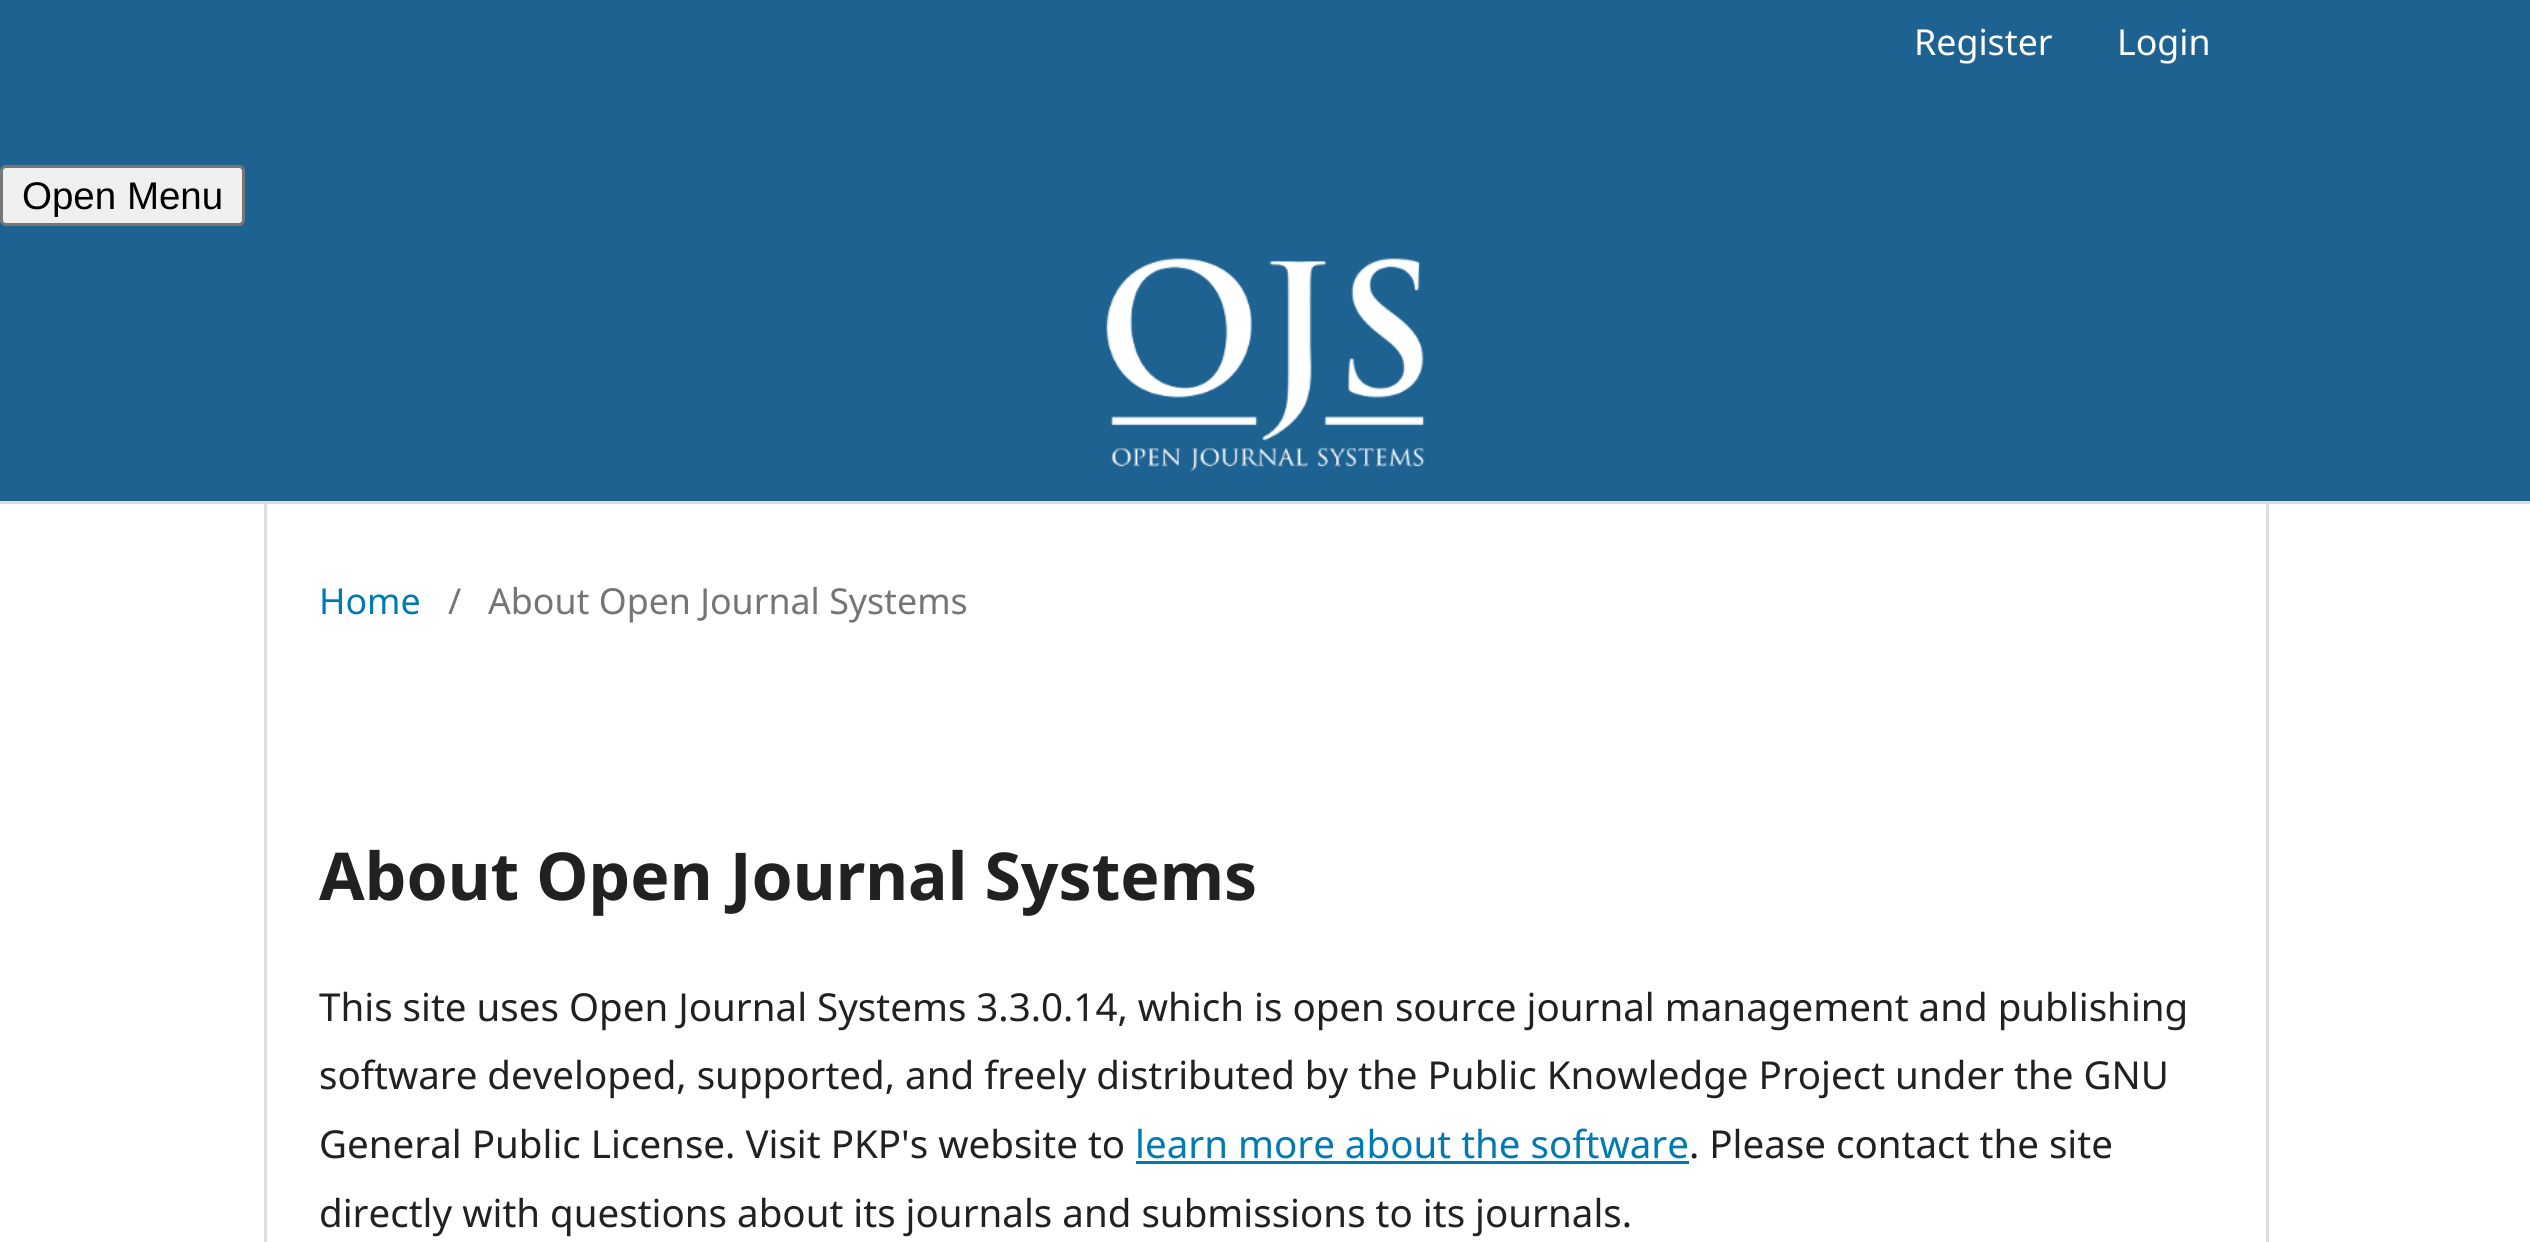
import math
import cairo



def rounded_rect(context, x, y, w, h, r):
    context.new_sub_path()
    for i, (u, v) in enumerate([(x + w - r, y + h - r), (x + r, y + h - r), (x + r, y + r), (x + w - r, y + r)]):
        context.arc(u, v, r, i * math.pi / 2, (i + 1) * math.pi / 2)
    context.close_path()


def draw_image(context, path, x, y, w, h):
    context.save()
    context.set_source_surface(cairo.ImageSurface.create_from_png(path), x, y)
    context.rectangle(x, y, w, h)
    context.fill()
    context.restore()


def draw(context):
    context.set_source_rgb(1, 1, 1)
    context.paint()
    context.set_source_rgb(30 / 255, 98 / 255, 146 / 255)
    context.rectangle(0, 0, 2530, 501)
    context.fill()
    context.set_source_rgb(221 / 255, 221 / 255, 221 / 255)
    context.rectangle(0, 501, 2530, 3)
    context.fill()
    context.set_source_rgb(239 / 255, 239 / 255, 239 / 255)
    rounded_rect(context, 1.5, 166.5, 242, 58, 4.5)
    context.fill_preserve()
    context.set_source_rgb(118 / 255, 118 / 255, 118 / 255)
    context.set_line_width(3)
    context.stroke()
    draw_image(context, "images/1.png", 1105, 258, 320, 214)
    context.set_source_rgb(221 / 255, 221 / 255, 221 / 255)
    context.rectangle(264, 503, 3, 739)
    context.fill()
    context.set_source_rgb(0, 122 / 255, 178 / 255)
    context.rectangle(1136, 1161, 553, 3)
    context.fill()
    context.set_source_rgb(221 / 255, 221 / 255, 221 / 255)
    context.rectangle(2266, 503, 3, 739)
    context.fill()
    context.select_font_face("Noto Sans")
    context.set_font_size(35.75)
    context.set_source_rgb(1, 1, 1)
    context.move_to(1914, 55)
    context.show_text("Register")
    context.move_to(2117, 55)
    context.show_text("Login")
    context.select_font_face("Liberation Sans")
    context.set_font_size(38.5)
    context.set_source_rgb(0, 0, 0)
    context.move_to(22, 209)
    context.show_text("Open Menu")
    context.select_font_face("Noto Sans")
    context.set_font_size(35.75)
    context.set_source_rgb(0, 122 / 255, 178 / 255)
    context.move_to(319, 614)
    context.show_text("Home")
    context.set_source_rgb(117 / 255, 117 / 255, 117 / 255)
    context.move_to(448, 614)
    context.show_text("/")
    context.move_to(488, 614)
    context.show_text("About Open Journal Systems")
    context.select_font_face("Noto Sans", cairo.FontSlant.NORMAL, cairo.FontWeight.BOLD)
    context.set_font_size(66)
    context.set_source_rgb(33 / 255, 33 / 255, 33 / 255)
    context.move_to(319, 900)
    context.show_text("About Open Journal Systems")
    context.select_font_face("Noto Sans")
    context.set_font_size(38.5)
    context.move_to(319, 1021)
    context.show_text("This site uses Open Journal Systems 3.3.0.14, which is open source journal management and publishing")
    context.move_to(319, 1089)
    context.show_text("software developed, supported, and freely distributed by the Public Knowledge Project under the GNU")
    context.move_to(319, 1158)
    context.show_text("General Public License. Visit PKP's website to")
    context.set_source_rgb(0, 122 / 255, 178 / 255)
    context.move_to(1135, 1158)
    context.show_text("learn more about the software")
    context.set_source_rgb(33 / 255, 33 / 255, 33 / 255)
    context.move_to(1689, 1158)
    context.show_text(". Please contact the site")
    context.move_to(319, 1227)
    context.show_text("directly with questions about its journals and submissions to its journals.")


surface = cairo.ImageSurface(cairo.Format.RGB24, 2530, 1242)
context = cairo.Context(surface)
options = cairo.FontOptions()
options.set_hint_metrics(cairo.HintMetrics.OFF)
options.set_hint_style(cairo.HintStyle.NONE)
context.set_font_options(options)
context.set_miter_limit(4)
draw(context)
surface.write_to_png("out.png")
